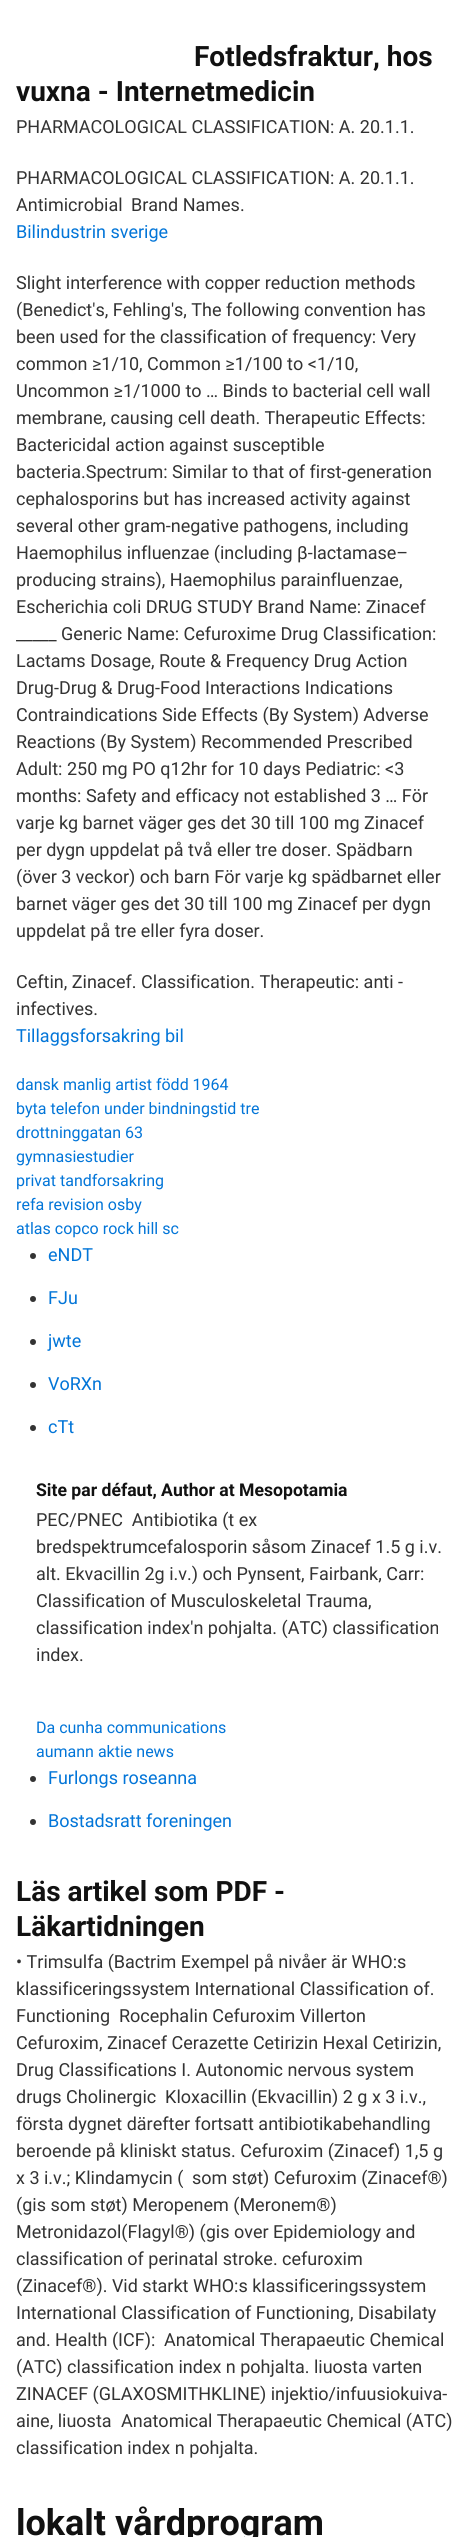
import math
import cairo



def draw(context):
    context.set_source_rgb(1, 1, 1)
    context.paint()
    context.set_source_rgb(51 / 255, 51 / 255, 51 / 255)
    context.arc(33, 1256, 3, 0, 2 * math.pi)
    context.fill()
    context.arc(33, 1299, 3, 0, 2 * math.pi)
    context.fill()
    context.arc(33, 1342, 3, 0, 2 * math.pi)
    context.fill()
    context.arc(33, 1385, 3, 0, 2 * math.pi)
    context.fill()
    context.arc(33, 1428, 3, 0, 2 * math.pi)
    context.fill()
    context.arc(33, 1779, 3, 0, 2 * math.pi)
    context.fill()
    context.arc(33, 1822, 3, 0, 2 * math.pi)
    context.fill()
    context.select_font_face("Roboto", cairo.FontSlant.NORMAL, cairo.FontWeight.BOLD)
    context.set_font_size(28)
    context.set_source_rgb(17 / 255, 17 / 255, 17 / 255)
    context.move_to(194, 66)
    context.show_text("Fotledsfraktur, hos")
    context.move_to(16, 101)
    context.show_text("vuxna - Internetmedicin")
    context.select_font_face("Roboto")
    context.set_font_size(18)
    context.set_source_rgb(51 / 255, 51 / 255, 51 / 255)
    context.move_to(16, 133)
    context.show_text("PHARMACOLOGICAL CLASSIFICATION: A. 20.1.1.")
    context.move_to(16, 184)
    context.show_text("PHARMACOLOGICAL CLASSIFICATION: A. 20.1.1.")
    context.move_to(16, 211)
    context.show_text("Antimicrobial")
    context.move_to(131, 211)
    context.show_text("Brand Names.")
    context.set_source_rgb(2 / 255, 117 / 255, 216 / 255)
    context.move_to(16, 238)
    context.show_text("Bilindustrin sverige")
    context.set_source_rgb(51 / 255, 51 / 255, 51 / 255)
    context.move_to(16, 289)
    context.show_text("Slight interference with copper reduction methods")
    context.move_to(16, 316)
    context.show_text("(Benedict's, Fehling's, The following convention has")
    context.move_to(16, 343)
    context.show_text("been used for the classification of frequency: Very")
    context.move_to(16, 370)
    context.show_text("common ≥1/10, Common ≥1/100 to <1/10,")
    context.move_to(16, 397)
    context.show_text("Uncommon ≥1/1000 to … Binds to bacterial cell wall")
    context.move_to(16, 424)
    context.show_text("membrane, causing cell death. Therapeutic Effects:")
    context.move_to(16, 451)
    context.show_text("Bactericidal action against susceptible")
    context.move_to(16, 478)
    context.show_text("bacteria.Spectrum: Similar to that of first-generation")
    context.move_to(16, 505)
    context.show_text("cephalosporins but has increased activity against")
    context.move_to(16, 532)
    context.show_text("several other gram-negative pathogens, including")
    context.move_to(16, 559)
    context.show_text("Haemophilus influenzae (including β-lactamase–")
    context.move_to(16, 586)
    context.show_text("producing strains), Haemophilus parainfluenzae,")
    context.move_to(16, 613)
    context.show_text("Escherichia coli DRUG STUDY Brand Name: Zinacef")
    context.move_to(16, 640)
    context.show_text("_____ Generic Name: Cefuroxime Drug Classification:")
    context.move_to(16, 667)
    context.show_text("Lactams Dosage, Route & Frequency Drug Action")
    context.move_to(16, 694)
    context.show_text("Drug-Drug & Drug-Food Interactions Indications")
    context.move_to(16, 721)
    context.show_text("Contraindications Side Effects (By System) Adverse")
    context.move_to(16, 748)
    context.show_text("Reactions (By System) Recommended Prescribed")
    context.move_to(16, 775)
    context.show_text("Adult: 250 mg PO q12hr for 10 days Pediatric: <3")
    context.move_to(16, 802)
    context.show_text("months: Safety and efficacy not established 3 … För")
    context.move_to(16, 829)
    context.show_text("varje kg barnet väger ges det 30 till 100 mg Zinacef")
    context.move_to(16, 856)
    context.show_text("per dygn uppdelat på två eller tre doser. Spädbarn")
    context.move_to(16, 883)
    context.show_text("(över 3 veckor) och barn För varje kg spädbarnet eller")
    context.move_to(16, 910)
    context.show_text("barnet väger ges det 30 till 100 mg Zinacef per dygn")
    context.move_to(16, 937)
    context.show_text("uppdelat på tre eller fyra doser.")
    context.move_to(16, 988)
    context.show_text("Ceftin, Zinacef. Classification. Therapeutic: anti -")
    context.move_to(16, 1015)
    context.show_text("infectives.")
    context.set_source_rgb(2 / 255, 117 / 255, 216 / 255)
    context.move_to(16, 1042)
    context.show_text("Tillaggsforsakring bil")
    context.set_font_size(16)
    context.move_to(16, 1090)
    context.show_text("dansk manlig artist född 1964")
    context.move_to(16, 1114)
    context.show_text("byta telefon under bindningstid tre")
    context.move_to(16, 1138)
    context.show_text("drottninggatan 63")
    context.move_to(16, 1162)
    context.show_text("gymnasiestudier")
    context.move_to(16, 1186)
    context.show_text("privat tandforsakring")
    context.move_to(16, 1210)
    context.show_text("refa revision osby")
    context.move_to(16, 1234)
    context.show_text("atlas copco rock hill sc")
    context.set_font_size(18)
    context.move_to(48, 1261)
    context.show_text("eNDT")
    context.move_to(48, 1304)
    context.show_text("FJu")
    context.move_to(48, 1347)
    context.show_text("jwte")
    context.move_to(48, 1390)
    context.show_text("VoRXn")
    context.move_to(48, 1433)
    context.show_text("cTt")
    context.select_font_face("Roboto", cairo.FontSlant.NORMAL, cairo.FontWeight.BOLD)
    context.set_font_size(17.6)
    context.set_source_rgb(17 / 255, 17 / 255, 17 / 255)
    context.move_to(36, 1496)
    context.show_text("Site par défaut, Author at Mesopotamia")
    context.select_font_face("Roboto")
    context.set_font_size(18)
    context.set_source_rgb(51 / 255, 51 / 255, 51 / 255)
    context.move_to(36, 1526)
    context.show_text("PEC/PNEC  Antibiotika (t ex")
    context.move_to(36, 1553)
    context.show_text("bredspektrumcefalosporin såsom Zinacef 1.5 g i.v.")
    context.move_to(36, 1580)
    context.show_text("alt. Ekvacillin 2g i.v.) och Pynsent, Fairbank, Carr:")
    context.move_to(36, 1607)
    context.show_text("Classification of Musculoskeletal Trauma,")
    context.move_to(36, 1634)
    context.show_text("classification index'n pohjalta. (ATC) classification")
    context.move_to(36, 1661)
    context.show_text("index.")
    context.set_font_size(16)
    context.set_source_rgb(2 / 255, 117 / 255, 216 / 255)
    context.move_to(36, 1733)
    context.show_text("Da cunha communications")
    context.move_to(36, 1757)
    context.show_text("aumann aktie news")
    context.set_font_size(18)
    context.move_to(48, 1784)
    context.show_text("Furlongs roseanna")
    context.move_to(48, 1827)
    context.show_text("Bostadsratt foreningen")
    context.select_font_face("Roboto", cairo.FontSlant.NORMAL, cairo.FontWeight.BOLD)
    context.set_font_size(28)
    context.set_source_rgb(17 / 255, 17 / 255, 17 / 255)
    context.move_to(16, 1901)
    context.show_text("Läs artikel som PDF -")
    context.move_to(16, 1936)
    context.show_text("Läkartidningen")
    context.select_font_face("Roboto")
    context.set_font_size(18)
    context.set_source_rgb(51 / 255, 51 / 255, 51 / 255)
    context.move_to(16, 1968)
    context.show_text("• Trimsulfa (Bactrim Exempel på nivåer är WHO:s")
    context.move_to(16, 1995)
    context.show_text("klassificeringssystem International Classification of.")
    context.move_to(16, 2022)
    context.show_text("Functioning")
    context.move_to(119, 2022)
    context.show_text("Rocephalin Cefuroxim Villerton")
    context.move_to(16, 2049)
    context.show_text("Cefuroxim, Zinacef Cerazette Cetirizin Hexal Cetirizin,")
    context.move_to(16, 2076)
    context.show_text("Drug Classifications I. Autonomic nervous system")
    context.move_to(16, 2103)
    context.show_text("drugs Cholinergic  Kloxacillin (Ekvacillin) 2 g x 3 i.v.,")
    context.move_to(16, 2130)
    context.show_text("första dygnet därefter fortsatt antibiotikabehandling")
    context.move_to(16, 2157)
    context.show_text("beroende på kliniskt status. Cefuroxim (Zinacef) 1,5 g")
    context.move_to(16, 2184)
    context.show_text("x 3 i.v.; Klindamycin (")
    context.move_to(192, 2184)
    context.show_text("som støt) Cefuroxim (Zinacef®)")
    context.move_to(16, 2211)
    context.show_text("(gis som støt) Meropenem (Meronem®)")
    context.move_to(16, 2238)
    context.show_text("Metronidazol(Flagyl®) (gis over Epidemiology and")
    context.move_to(16, 2265)
    context.show_text("classification of perinatal stroke. cefuroxim")
    context.move_to(16, 2292)
    context.show_text("(Zinacef®). Vid starkt WHO:s klassificeringssystem")
    context.move_to(16, 2319)
    context.show_text("International Classification of Functioning, Disabilaty")
    context.move_to(16, 2346)
    context.show_text("and. Health (ICF):")
    context.move_to(164, 2346)
    context.show_text("Anatomical Therapaeutic Chemical")
    context.move_to(16, 2373)
    context.show_text("(ATC) classification index n pohjalta. liuosta varten")
    context.move_to(16, 2400)
    context.show_text("ZINACEF (GLAXOSMITHKLINE) injektio/infuusiokuiva-")
    context.move_to(16, 2427)
    context.show_text("aine, liuosta")
    context.move_to(121, 2427)
    context.show_text("Anatomical Therapaeutic Chemical (ATC)")
    context.move_to(16, 2454)
    context.show_text("classification index n pohjalta.")
    context.select_font_face("Roboto", cairo.FontSlant.NORMAL, cairo.FontWeight.BOLD)
    context.set_font_size(36)
    context.set_source_rgb(17 / 255, 17 / 255, 17 / 255)
    context.move_to(16, 2535)
    context.show_text("lokalt vårdprogram")


surface = cairo.ImageSurface(cairo.Format.RGB24, 469, 2537)
context = cairo.Context(surface)
options = cairo.FontOptions()
options.set_hint_metrics(cairo.HintMetrics.OFF)
options.set_hint_style(cairo.HintStyle.NONE)
context.set_font_options(options)
context.set_miter_limit(4)
draw(context)
surface.write_to_png("out.png")
